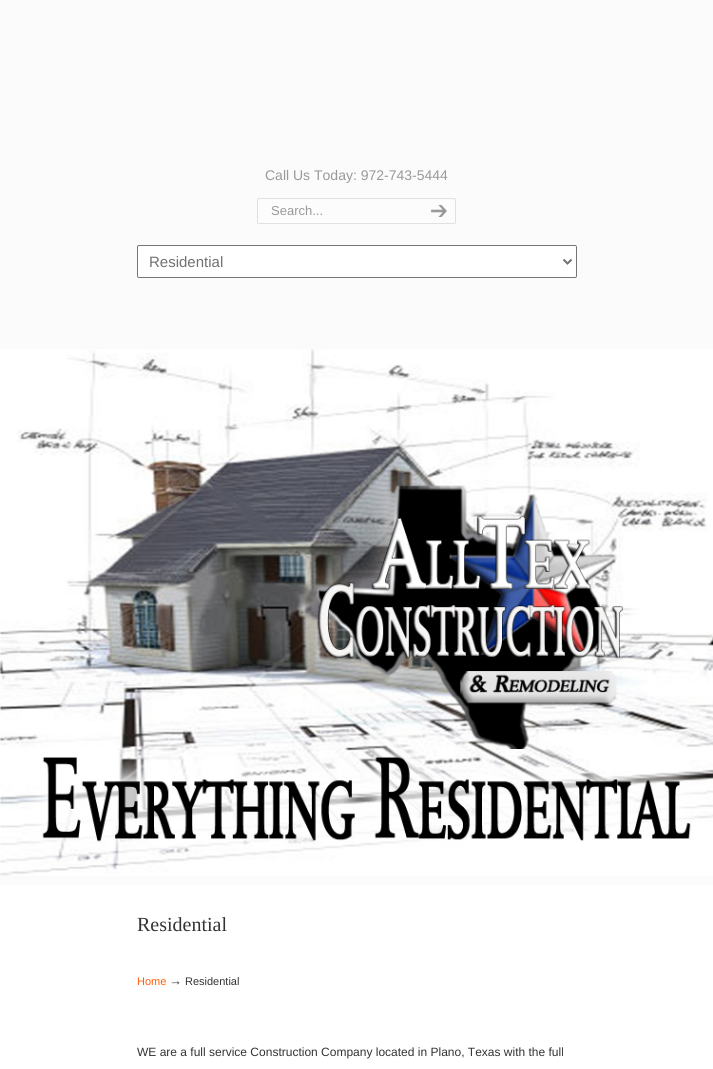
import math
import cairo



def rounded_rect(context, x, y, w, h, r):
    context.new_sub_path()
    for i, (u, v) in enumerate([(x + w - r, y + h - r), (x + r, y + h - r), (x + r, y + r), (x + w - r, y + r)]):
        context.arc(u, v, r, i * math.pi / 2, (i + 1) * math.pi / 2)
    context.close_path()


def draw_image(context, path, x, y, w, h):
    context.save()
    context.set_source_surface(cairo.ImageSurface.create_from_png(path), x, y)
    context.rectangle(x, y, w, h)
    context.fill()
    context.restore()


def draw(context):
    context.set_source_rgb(251 / 255, 251 / 255, 251 / 255)
    context.paint()
    draw_image(context, "images/1.png", 257, 198, 159, 26)
    draw_image(context, "images/2.png", 416, 198, 40, 26)
    context.set_source_rgb(1, 1, 1)
    rounded_rect(context, 137.5, 245.5, 439, 32, 1.5)
    context.fill_preserve()
    context.set_source_rgb(118 / 255, 118 / 255, 118 / 255)
    context.set_line_width(1)
    context.stroke()
    context.new_path()
    context.move_to(563.5, 259.5)
    context.line_to(567.5, 263.5)
    context.line_to(571.5, 259.5)
    context.set_source_rgb(113 / 255, 113 / 255, 113 / 255)
    context.set_line_width(2)
    context.stroke()
    draw_image(context, "images/3.png", 0, 349, 713, 527)
    context.set_source_rgb(1, 1, 1)
    context.rectangle(0, 885, 713, 184)
    context.fill()
    context.select_font_face("Liberation Sans")
    context.set_font_size(14)
    context.set_source_rgb(153 / 255, 153 / 255, 153 / 255)
    context.move_to(265, 180)
    context.show_text("Call Us Today: 972-743-5444")
    context.set_font_size(13)
    context.move_to(271, 215)
    context.show_text("Search...")
    context.set_font_size(15)
    context.set_source_rgb(113 / 255, 113 / 255, 113 / 255)
    context.move_to(149, 267)
    context.show_text("Residential")
    context.select_font_face("Liberation Serif")
    context.set_font_size(20)
    context.set_source_rgb(51 / 255, 51 / 255, 51 / 255)
    context.move_to(137, 931)
    context.show_text("Residential")
    context.select_font_face("Liberation Sans")
    context.set_font_size(11)
    context.set_source_rgb(254 / 255, 94 / 255, 8 / 255)
    context.move_to(137, 985)
    context.show_text("Home")
    context.set_font_size(13)
    context.set_source_rgb(51 / 255, 51 / 255, 51 / 255)
    context.move_to(169, 985)
    context.show_text("→")
    context.set_font_size(11)
    context.move_to(185, 985)
    context.show_text("Residential")
    context.set_font_size(12)
    context.move_to(137, 1056)
    context.show_text("WE are a full service Construction Company located in Plano, Texas with the full")


surface = cairo.ImageSurface(cairo.Format.RGB24, 713, 1069)
context = cairo.Context(surface)
options = cairo.FontOptions()
options.set_hint_metrics(cairo.HintMetrics.OFF)
options.set_hint_style(cairo.HintStyle.NONE)
context.set_font_options(options)
context.set_miter_limit(4)
draw(context)
surface.write_to_png("out.png")
